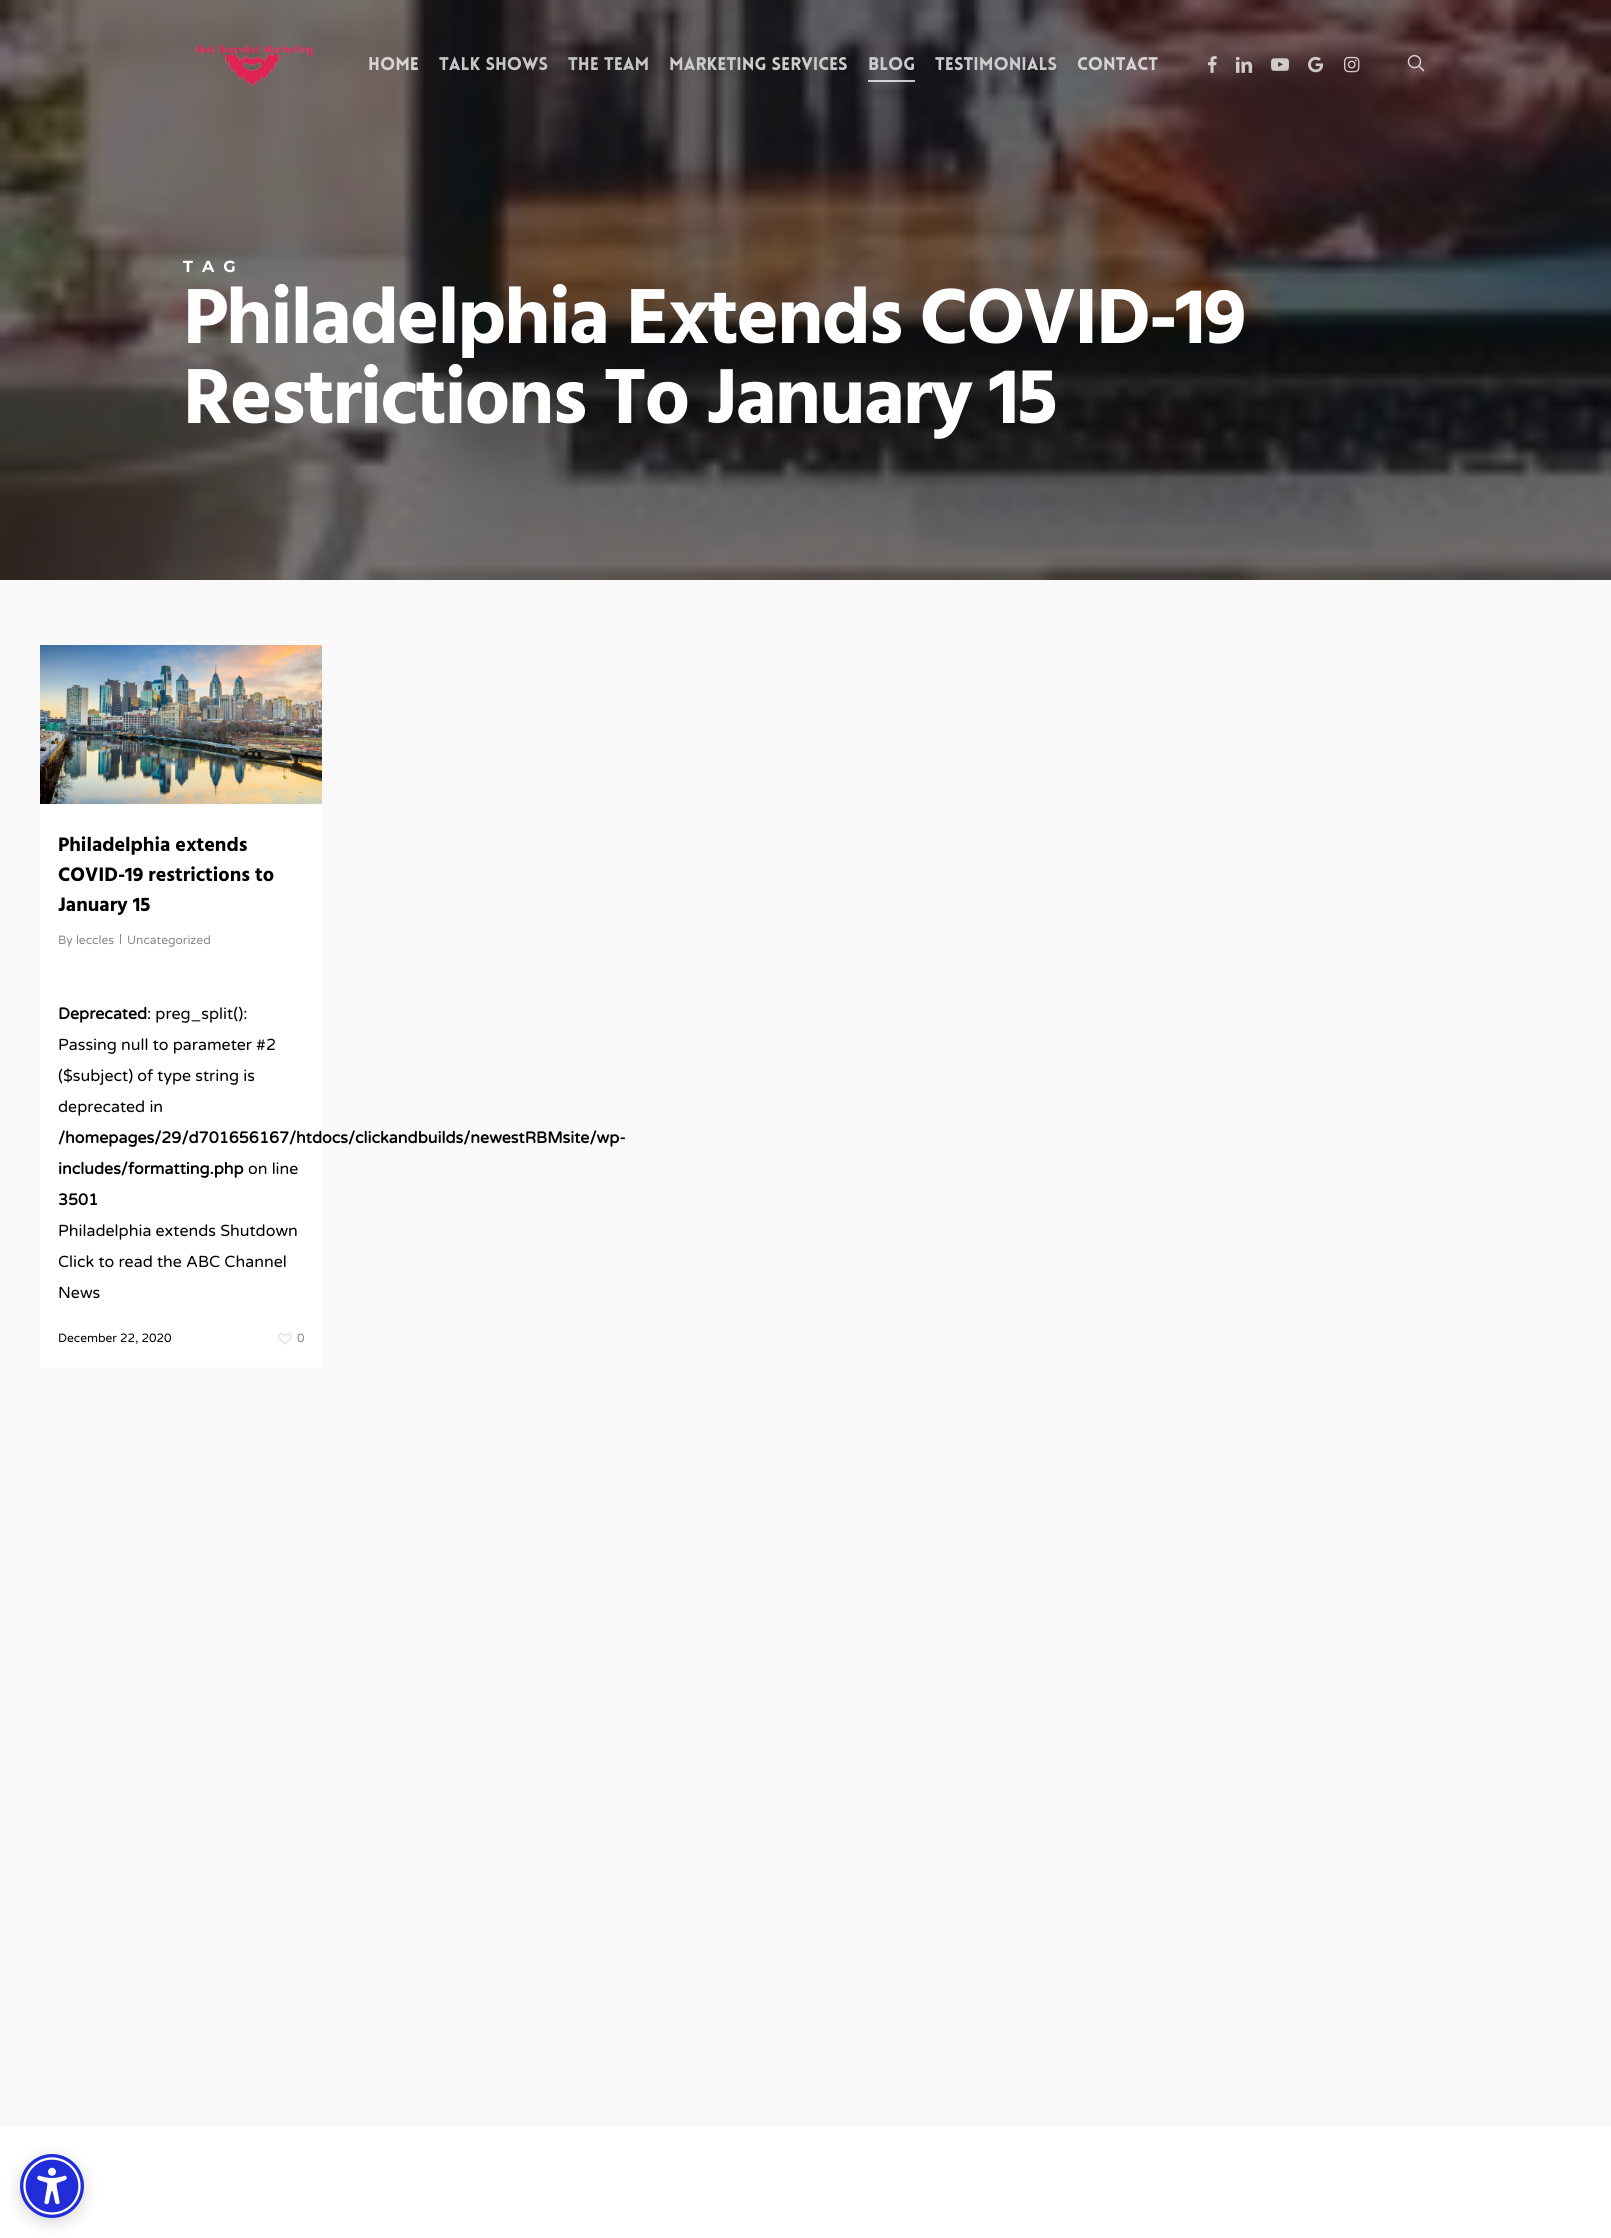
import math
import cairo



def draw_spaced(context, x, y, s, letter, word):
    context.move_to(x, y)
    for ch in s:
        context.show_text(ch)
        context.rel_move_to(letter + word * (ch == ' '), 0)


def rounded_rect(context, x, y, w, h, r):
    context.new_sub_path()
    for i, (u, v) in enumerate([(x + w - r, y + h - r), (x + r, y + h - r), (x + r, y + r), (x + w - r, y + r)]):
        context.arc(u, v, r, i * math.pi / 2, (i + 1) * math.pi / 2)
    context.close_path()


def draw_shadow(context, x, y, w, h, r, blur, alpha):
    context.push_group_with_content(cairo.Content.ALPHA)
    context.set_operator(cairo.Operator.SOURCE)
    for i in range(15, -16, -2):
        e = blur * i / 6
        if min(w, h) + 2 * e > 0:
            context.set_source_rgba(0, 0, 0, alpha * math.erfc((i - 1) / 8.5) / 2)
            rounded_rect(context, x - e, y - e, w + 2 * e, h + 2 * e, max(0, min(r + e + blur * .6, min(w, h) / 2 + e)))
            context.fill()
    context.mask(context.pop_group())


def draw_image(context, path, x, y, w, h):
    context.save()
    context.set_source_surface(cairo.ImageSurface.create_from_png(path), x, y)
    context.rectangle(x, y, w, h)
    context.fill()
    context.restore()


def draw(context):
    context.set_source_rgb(249 / 255, 249 / 255, 249 / 255)
    context.paint()
    draw_image(context, "images/8.png", 0, 0, 1611, 580)
    draw_image(context, "images/1.png", 196, 44, 118, 42)
    context.set_source_rgba(1, 1, 1, 0.75)
    context.rectangle(868, 80, 47, 2)
    context.fill()
    draw_image(context, "images/2.png", 1207, 56, 10, 17)
    draw_image(context, "images/3.png", 1235, 56, 18, 17)
    draw_image(context, "images/4.png", 1271, 58, 18, 13)
    draw_image(context, "images/5.png", 1308, 56, 16, 17)
    draw_image(context, "images/6.png", 1344, 56, 16, 17)
    draw_image(context, "images/7.png", 1407, 54, 18, 18)
    context.set_source_rgb(1, 1, 1)
    context.rectangle(40, 804, 282, 563)
    context.fill()
    draw_image(context, "images/9.png", 40, 645, 282, 159)
    context.set_source_rgb(136 / 255, 136 / 255, 136 / 255)
    context.rectangle(120, 934, 1, 10)
    context.fill()
    draw_image(context, "images/10.png", 278, 1333, 14, 12)
    context.set_source_rgb(1, 1, 1)
    context.rectangle(0, 2127, 1611, 111)
    context.fill()
    context.set_source_rgb(0, 0, 0)
    draw_shadow(context, 20, 2158, 64, 64, 32, 8, 0.15)
    draw_image(context, "images/11.png", 20, 2154, 64, 64)
    context.select_font_face("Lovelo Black")
    context.set_font_size(18)
    context.set_source_rgb(216 / 255, 213 / 255, 213 / 255)
    context.move_to(368, 70)
    context.show_text("Home")
    context.set_source_rgb(198 / 255, 198 / 255, 198 / 255)
    context.move_to(439, 70)
    context.show_text("Talk Shows")
    context.move_to(568, 70)
    context.show_text("the Team")
    context.set_source_rgb(204 / 255, 204 / 255, 205 / 255)
    context.move_to(669, 70)
    context.show_text("Marketing Services")
    context.move_to(868, 70)
    context.show_text("Blog")
    context.move_to(935, 70)
    context.show_text("Testimonials")
    context.set_source_rgb(216 / 255, 213 / 255, 213 / 255)
    context.move_to(1077, 70)
    context.show_text("Contact")
    context.select_font_face("Montserrat Thin")
    context.set_font_size(16)
    context.set_source_rgb(1, 1, 1)
    draw_spaced(context, 183, 272, "TAG", 9, 0)
    context.select_font_face("Hind", cairo.FontSlant.NORMAL, cairo.FontWeight.BOLD)
    context.set_font_size(80)
    draw_spaced(context, 183, 343, "Philadelphia Extends COVID-19", -2, 0)
    draw_spaced(context, 183, 423, "Restrictions To January 15", -2, 0)
    context.set_font_size(20)
    context.set_source_rgb(0, 0, 0)
    context.move_to(58, 851)
    context.show_text("Philadelphia extends")
    context.move_to(58, 881)
    context.show_text("COVID-19 restrictions to")
    context.move_to(58, 911)
    context.show_text("January 15")
    context.select_font_face("Varela Round")
    context.set_font_size(12)
    context.set_source_rgb(136 / 255, 136 / 255, 136 / 255)
    context.move_to(58, 944)
    context.show_text("By leccles")
    context.move_to(127, 944)
    context.show_text("Uncategorized")
    context.select_font_face("Varela Round", cairo.FontSlant.NORMAL, cairo.FontWeight.BOLD)
    context.set_font_size(16)
    context.set_source_rgb(0, 0, 0)
    context.move_to(58, 1019)
    context.show_text("Deprecated")
    context.select_font_face("Varela Round")
    context.move_to(147, 1019)
    context.show_text(": preg_split():")
    context.move_to(58, 1050)
    context.show_text("Passing null to parameter #2")
    context.move_to(58, 1081)
    context.show_text("($subject) of type string is")
    context.move_to(58, 1112)
    context.show_text("deprecated in")
    context.select_font_face("Varela Round", cairo.FontSlant.NORMAL, cairo.FontWeight.BOLD)
    context.move_to(58, 1143)
    context.show_text("/homepages/29/d701656167/htdocs/clickandbuilds/newestRBMsite/wp-")
    context.move_to(58, 1174)
    context.show_text("includes/formatting.php")
    context.select_font_face("Varela Round")
    context.move_to(248, 1174)
    context.show_text("on line")
    context.select_font_face("Varela Round", cairo.FontSlant.NORMAL, cairo.FontWeight.BOLD)
    context.move_to(58, 1205)
    context.show_text("3501")
    context.select_font_face("Varela Round")
    context.move_to(58, 1236)
    context.show_text("Philadelphia extends Shutdown")
    context.move_to(58, 1267)
    context.show_text("Click to read the ABC Channel")
    context.move_to(58, 1298)
    context.show_text("News")
    context.set_font_size(12)
    context.move_to(58, 1342)
    context.show_text("December 22, 2020")
    context.set_source_rgb(136 / 255, 136 / 255, 136 / 255)
    context.move_to(297, 1342)
    context.show_text("0")


surface = cairo.ImageSurface(cairo.Format.RGB24, 1611, 2238)
context = cairo.Context(surface)
options = cairo.FontOptions()
options.set_hint_metrics(cairo.HintMetrics.OFF)
options.set_hint_style(cairo.HintStyle.NONE)
context.set_font_options(options)
context.set_miter_limit(4)
draw(context)
surface.write_to_png("out.png")
